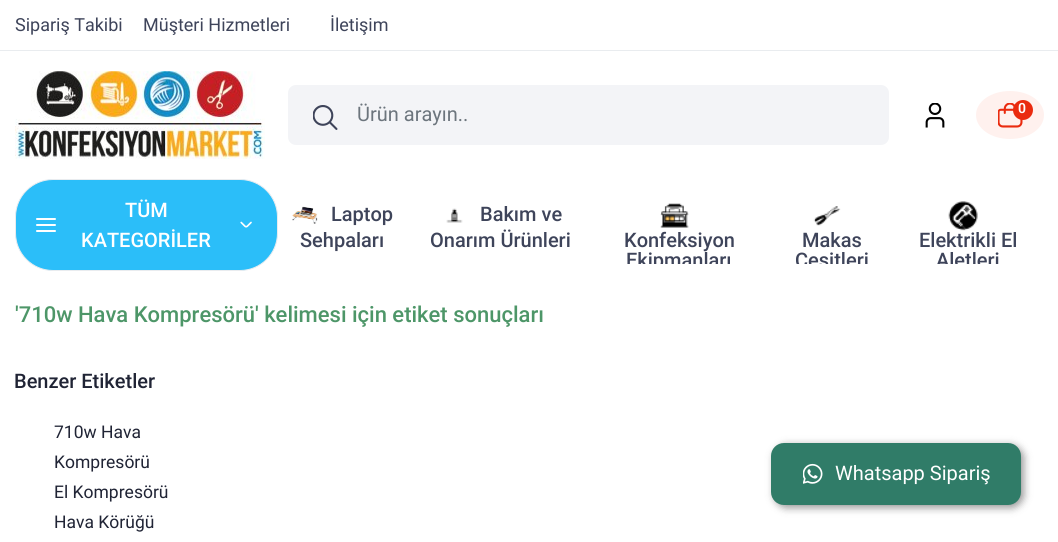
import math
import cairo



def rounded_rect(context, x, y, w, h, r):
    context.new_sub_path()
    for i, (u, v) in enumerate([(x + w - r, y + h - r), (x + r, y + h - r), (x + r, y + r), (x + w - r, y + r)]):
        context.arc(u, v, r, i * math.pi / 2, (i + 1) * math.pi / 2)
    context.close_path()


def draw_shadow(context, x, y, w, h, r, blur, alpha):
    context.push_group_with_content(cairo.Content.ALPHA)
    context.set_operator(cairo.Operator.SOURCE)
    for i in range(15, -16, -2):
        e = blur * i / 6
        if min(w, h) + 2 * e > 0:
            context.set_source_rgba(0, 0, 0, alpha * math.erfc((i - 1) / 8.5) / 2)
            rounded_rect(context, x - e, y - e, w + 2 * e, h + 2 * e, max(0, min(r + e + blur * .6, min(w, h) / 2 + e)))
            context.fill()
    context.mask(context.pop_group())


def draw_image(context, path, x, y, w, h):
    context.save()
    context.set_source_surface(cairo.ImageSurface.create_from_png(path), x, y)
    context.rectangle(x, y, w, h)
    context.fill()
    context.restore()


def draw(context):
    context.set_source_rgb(1, 1, 1)
    context.paint()
    context.set_source_rgb(233 / 255, 236 / 255, 239 / 255)
    context.rectangle(0, 50, 1058, 1)
    context.fill()
    draw_image(context, "images/1.png", 15, 71, 250, 88)
    context.set_source_rgb(243 / 255, 244 / 255, 247 / 255)
    rounded_rect(context, 288, 85, 601, 60, 8)
    context.fill()
    draw_image(context, "images/2.png", 313, 105, 25, 25)
    draw_image(context, "images/3.png", 925, 103, 20, 25)
    context.set_source_rgb(1, 241 / 255, 238 / 255)
    context.new_path()
    context.move_to(1010, 91)
    context.curve_to(1029, 91, 1044, 101.5, 1044, 115)
    context.curve_to(1044, 128.5, 1029, 139, 1010, 139)
    context.curve_to(991, 139, 976, 128.5, 976, 115)
    context.curve_to(976, 101.5, 991, 91, 1010, 91)
    context.close_path()
    context.fill()
    draw_image(context, "images/4.png", 998, 103, 25, 25)
    context.set_source_rgb(234 / 255, 43 / 255, 15 / 255)
    context.arc(1023, 110, 10, 0, 2 * math.pi)
    context.fill()
    context.set_source_rgb(43 / 255, 190 / 255, 249 / 255)
    rounded_rect(context, 15.5, 179.5, 262, 91, 37.5)
    context.fill_preserve()
    context.set_source_rgb(233 / 255, 236 / 255, 239 / 255)
    context.set_line_width(1)
    context.stroke()
    context.set_source_rgb(1, 1, 1)
    rounded_rect(context, 36, 224, 20, 2, 1)
    context.fill()
    rounded_rect(context, 36, 218, 20, 2, 1)
    context.fill()
    rounded_rect(context, 36, 230, 20, 2, 1)
    context.fill()
    draw_image(context, "images/5.png", 240, 221, 12, 7)
    draw_image(context, "images/6.png", 292, 206, 26, 18)
    draw_image(context, "images/7.png", 446, 208, 17, 15)
    draw_image(context, "images/8.png", 660, 203, 29, 25)
    draw_image(context, "images/9.png", 813, 206, 28, 20)
    draw_image(context, "images/10.png", 948, 201, 30, 30)
    context.set_source_rgb(0, 0, 0)
    draw_shadow(context, 774, 445, 250, 63, 13, 4, 0.4)
    context.set_source_rgb(48 / 255, 124 / 255, 104 / 255)
    rounded_rect(context, 771, 443, 250, 62, 13)
    context.fill()
    draw_image(context, "images/11.png", 803, 463, 20, 21)
    context.select_font_face("Roboto")
    context.set_font_size(18)
    context.set_source_rgb(62 / 255, 68 / 255, 90 / 255)
    context.move_to(15, 31)
    context.show_text("Sipariş Takibi")
    context.move_to(143, 31)
    context.show_text("Müşteri Hizmetleri")
    context.move_to(330, 31)
    context.show_text("İletişim")
    context.set_font_size(20)
    context.set_source_rgb(108 / 255, 117 / 255, 125 / 255)
    context.move_to(357, 121)
    context.show_text("Ürün arayın..")
    context.select_font_face("Roboto SemiBold")
    context.set_font_size(14)
    context.set_source_rgb(1, 1, 1)
    context.move_to(1018, 113)
    context.show_text("0")
    context.select_font_face("Roboto Medium")
    context.set_font_size(20)
    context.move_to(125, 217)
    context.show_text("TÜM")
    context.move_to(81, 247)
    context.show_text("KATEGORİLER")
    context.set_source_rgb(62 / 255, 68 / 255, 90 / 255)
    context.move_to(331, 221)
    context.show_text("Laptop")
    context.move_to(300, 247)
    context.show_text("Sehpaları")
    context.move_to(480, 221)
    context.show_text("Bakım ve")
    context.move_to(430, 247)
    context.show_text("Onarım Ürünleri")
    context.move_to(624, 247)
    context.show_text("Konfeksiyon")
    context.save()
    context.rectangle(594, 188, 171, 76)
    context.clip()
    context.move_to(626, 267)
    context.show_text("Ekipmanları")
    context.restore()
    context.move_to(802, 247)
    context.show_text("Makas")
    context.save()
    context.rectangle(771, 188, 122, 76)
    context.clip()
    context.move_to(795, 267)
    context.show_text("Çeşitleri")
    context.restore()
    context.move_to(919, 247)
    context.show_text("Elektrikli El")
    context.save()
    context.rectangle(899, 188, 139, 76)
    context.clip()
    context.move_to(936, 267)
    context.show_text("Aletleri")
    context.restore()
    context.set_font_size(22)
    context.set_source_rgb(77 / 255, 150 / 255, 104 / 255)
    context.move_to(15, 322)
    context.show_text("'710w Hava Kompresörü' kelimesi için etiket sonuçları")
    context.set_font_size(20)
    context.set_source_rgb(32 / 255, 36 / 255, 53 / 255)
    context.move_to(14, 388)
    context.show_text("Benzer Etiketler")
    context.select_font_face("Roboto")
    context.set_font_size(17.5)
    context.move_to(54, 438)
    context.show_text("710w Hava")
    context.move_to(54, 468)
    context.show_text("Kompresörü")
    context.move_to(54, 498)
    context.show_text("El Kompresörü")
    context.move_to(54, 528)
    context.show_text("Hava Körüğü")
    context.set_font_size(20)
    context.set_source_rgb(1, 1, 1)
    context.move_to(835, 480)
    context.show_text("Whatsapp Sipariş")


surface = cairo.ImageSurface(cairo.Format.RGB24, 1058, 542)
context = cairo.Context(surface)
options = cairo.FontOptions()
options.set_hint_metrics(cairo.HintMetrics.OFF)
options.set_hint_style(cairo.HintStyle.NONE)
context.set_font_options(options)
context.set_miter_limit(4)
draw(context)
surface.write_to_png("out.png")
